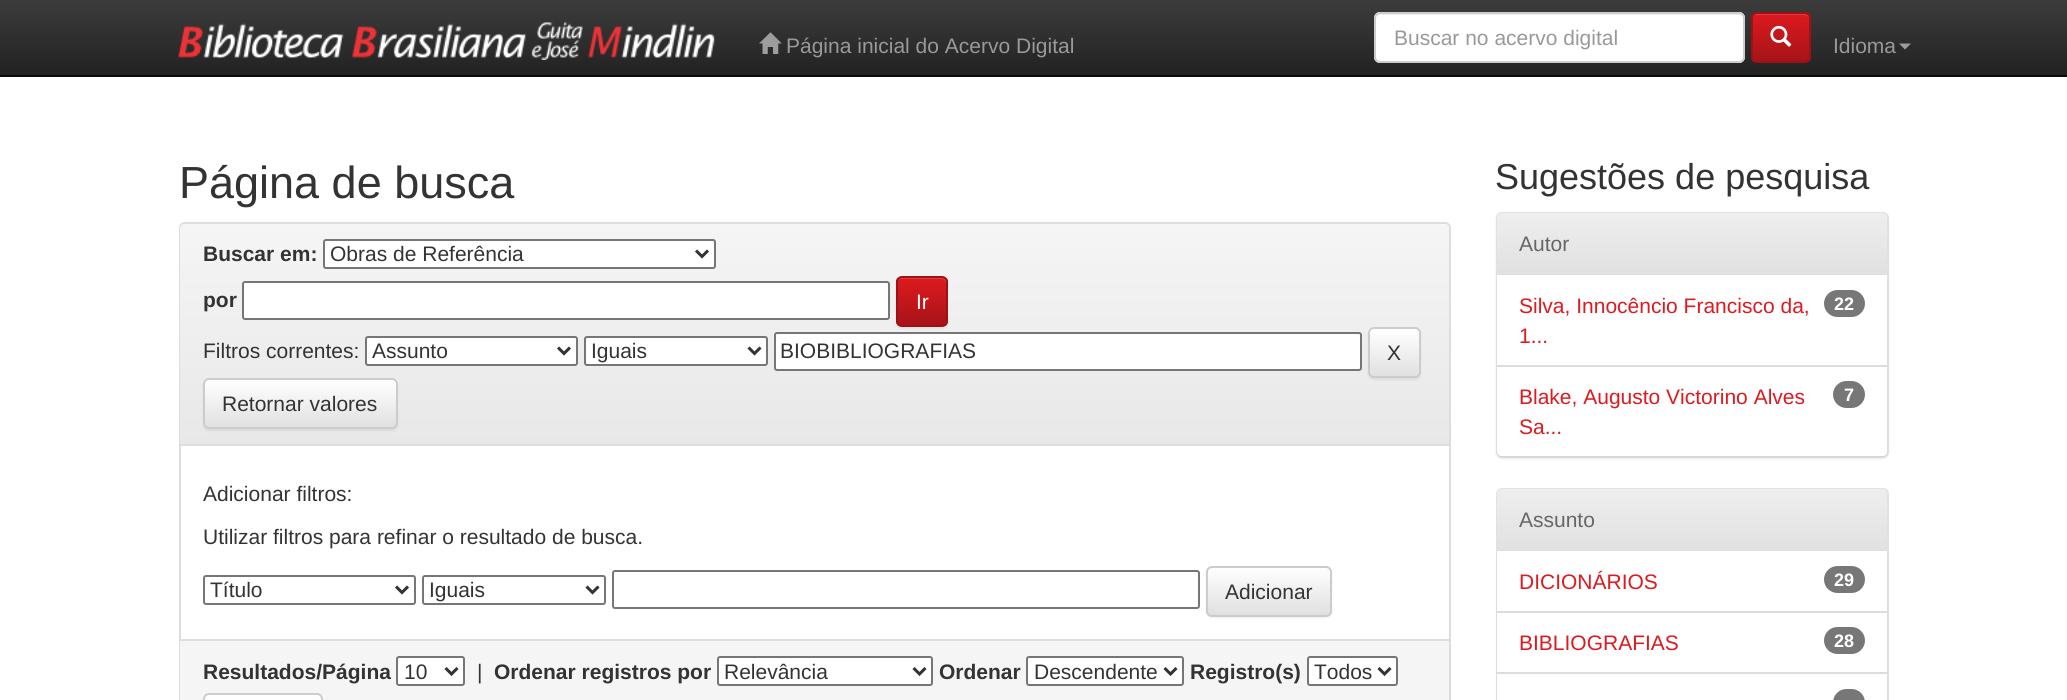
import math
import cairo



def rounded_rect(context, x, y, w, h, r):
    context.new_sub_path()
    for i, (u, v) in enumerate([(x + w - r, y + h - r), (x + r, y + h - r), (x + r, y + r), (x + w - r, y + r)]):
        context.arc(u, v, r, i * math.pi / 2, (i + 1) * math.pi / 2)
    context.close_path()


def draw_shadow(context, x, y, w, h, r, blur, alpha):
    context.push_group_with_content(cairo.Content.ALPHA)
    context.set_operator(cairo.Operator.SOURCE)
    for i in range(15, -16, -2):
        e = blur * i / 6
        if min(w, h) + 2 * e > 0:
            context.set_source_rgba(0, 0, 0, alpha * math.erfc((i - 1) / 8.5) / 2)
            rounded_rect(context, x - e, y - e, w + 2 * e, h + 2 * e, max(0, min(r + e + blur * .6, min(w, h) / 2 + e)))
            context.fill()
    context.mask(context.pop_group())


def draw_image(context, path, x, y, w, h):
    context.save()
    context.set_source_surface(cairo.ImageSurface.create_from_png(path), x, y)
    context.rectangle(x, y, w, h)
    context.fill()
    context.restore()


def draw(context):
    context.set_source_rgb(1, 1, 1)
    context.paint()
    gradient = cairo.LinearGradient(1034, 0, 1034, 75)
    gradient.add_color_stop_rgba(0, 60 / 255, 60 / 255, 60 / 255, 1)
    gradient.add_color_stop_rgba(1, 34 / 255, 34 / 255, 34 / 255, 1)
    context.set_source(gradient)
    context.rectangle(0, 0, 2067, 75)
    context.fill()
    context.set_source_rgb(8 / 255, 8 / 255, 8 / 255)
    context.rectangle(0, 75, 2067, 2)
    context.fill()
    draw_image(context, "images/1.png", 178, 22, 537, 38)
    draw_image(context, "images/2.png", 759, 32, 23, 22)
    context.set_source_rgb(1, 1, 1)
    rounded_rect(context, 1374, 12, 371, 51, 6)
    context.fill()
    context.set_source_rgb(236 / 255, 236 / 255, 236 / 255)
    context.new_path()
    context.move_to(1380, 15)
    context.line_to(1738, 15)
    context.curve_to(1741, 15, 1743, 17, 1743, 20)
    context.line_to(1743, 19)
    context.curve_to(1743, 16, 1741, 14, 1738, 14)
    context.line_to(1381, 14)
    context.curve_to(1378, 14, 1376, 16, 1376, 19)
    context.line_to(1376, 20)
    context.curve_to(1376, 17, 1378, 15, 1380, 15)
    context.close_path()
    context.fill()
    rounded_rect(context, 1375, 13, 369, 49, 5)
    context.set_source_rgb(204 / 255, 204 / 255, 204 / 255)
    context.stroke()
    context.save()
    rounded_rect(context, 1751, 12, 60, 51, 6)
    context.clip()
    gradient = cairo.LinearGradient(1781, 13, 1781, 62)
    gradient.add_color_stop_rgba(0, 221 / 255, 26 / 255, 31 / 255, 1)
    gradient.add_color_stop_rgba(1, 166 / 255, 19 / 255, 23 / 255, 1)
    context.set_source(gradient)
    context.rectangle(1751, 14, 60, 48)
    context.fill()
    context.restore()
    context.set_source_rgb(224 / 255, 60 / 255, 65 / 255)
    context.new_path()
    context.move_to(1756, 15)
    context.line_to(1804, 15)
    context.curve_to(1807, 15, 1809, 17, 1809, 20)
    context.curve_to(1809, 12, 1802, 14, 1796, 14)
    context.line_to(1765, 14)
    context.curve_to(1759, 14, 1752, 12, 1752, 20)
    context.curve_to(1752, 17, 1754, 15, 1756, 15)
    context.close_path()
    context.fill()
    rounded_rect(context, 1752, 13, 58, 49, 5)
    context.set_source_rgb(157 / 255, 18 / 255, 22 / 255)
    context.stroke()
    draw_image(context, "images/3.png", 1770, 25, 22, 22)
    context.set_source_rgb(157 / 255, 157 / 255, 157 / 255)
    context.new_path()
    context.move_to(1899, 43.5)
    context.line_to(1911, 43.5)
    context.line_to(1905, 49.5)
    context.close_path()
    context.fill()
    rounded_rect(context, 180, 223, 1270, 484, 5)
    context.set_source_rgb(221 / 255, 221 / 255, 221 / 255)
    context.stroke()
    gradient = cairo.LinearGradient(815, 223, 815, 444)
    gradient.add_color_stop_rgba(0, 245 / 255, 245 / 255, 245 / 255, 1)
    gradient.add_color_stop_rgba(1, 232 / 255, 232 / 255, 232 / 255, 1)
    context.set_source(gradient)
    context.new_path()
    context.move_to(185, 224)
    context.line_to(1444, 224)
    context.curve_to(1447, 224, 1449, 226, 1449, 229)
    context.line_to(1449, 444)
    context.line_to(180, 444)
    context.line_to(180, 229)
    context.curve_to(180, 226, 182, 224, 185, 224)
    context.close_path()
    context.fill()
    context.set_source_rgb(221 / 255, 221 / 255, 221 / 255)
    context.rectangle(180, 444, 1269, 2)
    context.fill()
    context.set_source_rgb(1, 1, 1)
    rounded_rect(context, 324, 240, 391, 28, 2)
    context.fill_preserve()
    context.set_source_rgb(118 / 255, 118 / 255, 118 / 255)
    context.stroke()
    context.new_path()
    context.move_to(696, 250.5)
    context.line_to(702, 256.5)
    context.line_to(708, 250.5)
    context.set_source_rgb(51 / 255, 51 / 255, 51 / 255)
    context.set_line_width(3)
    context.stroke()
    context.set_source_rgb(1, 1, 1)
    rounded_rect(context, 243, 282, 646, 37, 2)
    context.fill_preserve()
    context.set_source_rgb(118 / 255, 118 / 255, 118 / 255)
    context.set_line_width(2)
    context.stroke()
    context.set_source_rgb(1, 1, 1)
    rounded_rect(context, 775, 333, 586, 37, 2)
    context.fill_preserve()
    context.set_source_rgb(118 / 255, 118 / 255, 118 / 255)
    context.stroke()
    context.set_source_rgb(0, 0, 0)
    draw_shadow(context, 896, 278, 52, 51, 6, 1, 0.07)
    context.save()
    rounded_rect(context, 896, 276, 52, 51, 6)
    context.clip()
    gradient = cairo.LinearGradient(922, 278, 922, 326)
    gradient.add_color_stop_rgba(0, 221 / 255, 26 / 255, 31 / 255, 1)
    gradient.add_color_stop_rgba(1, 166 / 255, 19 / 255, 23 / 255, 1)
    context.set_source(gradient)
    context.rectangle(896, 278, 52, 48)
    context.fill()
    context.restore()
    context.set_source_rgba(1, 1, 1, 0.15)
    context.new_path()
    context.move_to(902, 279)
    context.line_to(942, 279)
    context.curve_to(944, 279, 946, 281, 946, 284)
    context.line_to(946, 322)
    context.line_to(945, 325)
    context.curve_to(946, 324, 947, 322, 947, 321)
    context.line_to(947, 283)
    context.curve_to(947, 280, 945, 278, 942, 278)
    context.line_to(902, 278)
    context.curve_to(899, 278, 897, 280, 897, 283)
    context.line_to(897, 284)
    context.curve_to(897, 281, 899, 279, 902, 279)
    context.close_path()
    context.fill()
    rounded_rect(context, 897, 277, 50, 49, 5)
    context.set_source_rgb(157 / 255, 18 / 255, 22 / 255)
    context.stroke()
    context.set_source_rgb(1, 1, 1)
    rounded_rect(context, 366, 337, 211, 28, 2)
    context.fill_preserve()
    context.set_source_rgb(118 / 255, 118 / 255, 118 / 255)
    context.stroke()
    context.new_path()
    context.move_to(558, 347.5)
    context.line_to(564, 353.5)
    context.line_to(570, 347.5)
    context.set_source_rgb(51 / 255, 51 / 255, 51 / 255)
    context.set_line_width(3)
    context.stroke()
    context.set_source_rgb(1, 1, 1)
    rounded_rect(context, 585, 337, 182, 28, 2)
    context.fill_preserve()
    context.set_source_rgb(118 / 255, 118 / 255, 118 / 255)
    context.set_line_width(2)
    context.stroke()
    context.new_path()
    context.move_to(748.5, 347.5)
    context.line_to(754.5, 353.5)
    context.line_to(760.5, 347.5)
    context.set_source_rgb(51 / 255, 51 / 255, 51 / 255)
    context.set_line_width(3)
    context.stroke()
    context.set_source_rgb(0, 0, 0)
    draw_shadow(context, 1368, 329, 53, 51, 6, 1, 0.07)
    context.save()
    rounded_rect(context, 1368, 327, 53, 51, 6)
    context.clip()
    gradient = cairo.LinearGradient(1394, 329, 1394, 377)
    gradient.add_color_stop_rgba(0, 1, 1, 1, 1)
    gradient.add_color_stop_rgba(1, 224 / 255, 224 / 255, 224 / 255, 1)
    context.set_source(gradient)
    context.rectangle(1368, 329, 53, 48)
    context.fill()
    context.restore()
    rounded_rect(context, 1369, 328, 51, 49, 5)
    context.set_source_rgb(204 / 255, 204 / 255, 204 / 255)
    context.set_line_width(2)
    context.stroke()
    context.set_source_rgb(0, 0, 0)
    draw_shadow(context, 203, 380, 195, 51, 6, 1, 0.07)
    context.save()
    rounded_rect(context, 203, 378, 195, 51, 6)
    context.clip()
    gradient = cairo.LinearGradient(300, 380, 300, 428)
    gradient.add_color_stop_rgba(0, 1, 1, 1, 1)
    gradient.add_color_stop_rgba(1, 224 / 255, 224 / 255, 224 / 255, 1)
    context.set_source(gradient)
    context.rectangle(203, 380, 195, 48)
    context.fill()
    context.restore()
    rounded_rect(context, 204, 379, 193, 49, 5)
    context.set_source_rgb(204 / 255, 204 / 255, 204 / 255)
    context.stroke()
    rounded_rect(context, 204, 576, 211, 28, 2)
    context.set_source_rgb(118 / 255, 118 / 255, 118 / 255)
    context.stroke()
    context.new_path()
    context.move_to(396, 586.5)
    context.line_to(402, 592.5)
    context.line_to(408, 586.5)
    context.set_source_rgb(51 / 255, 51 / 255, 51 / 255)
    context.set_line_width(3)
    context.stroke()
    rounded_rect(context, 423, 576, 182, 28, 2)
    context.set_source_rgb(118 / 255, 118 / 255, 118 / 255)
    context.set_line_width(2)
    context.stroke()
    context.new_path()
    context.move_to(586.5, 586.5)
    context.line_to(592.5, 592.5)
    context.line_to(598.5, 586.5)
    context.set_source_rgb(51 / 255, 51 / 255, 51 / 255)
    context.set_line_width(3)
    context.stroke()
    rounded_rect(context, 613, 571, 586, 37, 2)
    context.set_source_rgb(118 / 255, 118 / 255, 118 / 255)
    context.set_line_width(2)
    context.stroke()
    context.set_source_rgb(0, 0, 0)
    draw_shadow(context, 1206, 567, 126, 51, 6, 1, 0.07)
    context.save()
    rounded_rect(context, 1206, 566, 126, 51, 6)
    context.clip()
    gradient = cairo.LinearGradient(1269, 567, 1269, 615)
    gradient.add_color_stop_rgba(0, 1, 1, 1, 1)
    gradient.add_color_stop_rgba(1, 224 / 255, 224 / 255, 224 / 255, 1)
    context.set_source(gradient)
    context.rectangle(1206, 567, 126, 48)
    context.fill()
    context.restore()
    context.set_source_rgba(1, 1, 1, 0.15)
    context.new_path()
    context.move_to(1212, 568)
    context.line_to(1307, 568)
    context.curve_to(1332, 568, 1330, 564, 1330, 586)
    context.line_to(1330, 613)
    context.curve_to(1331, 612, 1331, 611, 1331, 610)
    context.line_to(1331, 572)
    context.curve_to(1331, 569, 1329, 567, 1326, 567)
    context.line_to(1213, 567)
    context.curve_to(1210, 567, 1208, 569, 1208, 572)
    context.line_to(1208, 573)
    context.curve_to(1208, 571, 1210, 568, 1212, 568)
    context.close_path()
    context.fill()
    rounded_rect(context, 1207, 567, 124, 49, 5)
    context.set_source_rgb(204 / 255, 204 / 255, 204 / 255)
    context.stroke()
    context.set_source_rgb(245 / 255, 245 / 255, 245 / 255)
    context.rectangle(180, 641, 1269, 59)
    context.fill()
    context.set_source_rgb(221 / 255, 221 / 255, 221 / 255)
    context.rectangle(180, 639, 1269, 2)
    context.fill()
    context.set_source_rgb(1, 1, 1)
    rounded_rect(context, 397, 657, 67, 28, 2)
    context.fill_preserve()
    context.set_source_rgb(118 / 255, 118 / 255, 118 / 255)
    context.stroke()
    context.new_path()
    context.move_to(445.5, 668)
    context.line_to(451.5, 674)
    context.line_to(457.5, 668)
    context.set_source_rgb(51 / 255, 51 / 255, 51 / 255)
    context.set_line_width(3)
    context.stroke()
    context.set_source_rgb(1, 1, 1)
    rounded_rect(context, 718, 657, 214, 28, 2)
    context.fill_preserve()
    context.set_source_rgb(118 / 255, 118 / 255, 118 / 255)
    context.set_line_width(2)
    context.stroke()
    context.new_path()
    context.move_to(913.5, 668)
    context.line_to(919.5, 674)
    context.line_to(925.5, 668)
    context.set_source_rgb(51 / 255, 51 / 255, 51 / 255)
    context.set_line_width(3)
    context.stroke()
    context.set_source_rgb(1, 1, 1)
    rounded_rect(context, 1027, 657, 156, 28, 2)
    context.fill_preserve()
    context.set_source_rgb(118 / 255, 118 / 255, 118 / 255)
    context.set_line_width(2)
    context.stroke()
    context.new_path()
    context.move_to(1164.5, 668)
    context.line_to(1170.5, 674)
    context.line_to(1176.5, 668)
    context.set_source_rgb(51 / 255, 51 / 255, 51 / 255)
    context.set_line_width(3)
    context.stroke()
    context.set_source_rgb(1, 1, 1)
    rounded_rect(context, 1308, 657, 89, 28, 2)
    context.fill_preserve()
    context.set_source_rgb(118 / 255, 118 / 255, 118 / 255)
    context.set_line_width(2)
    context.stroke()
    context.new_path()
    context.move_to(1378.5, 668)
    context.line_to(1384.5, 674)
    context.line_to(1390.5, 668)
    context.set_source_rgb(51 / 255, 51 / 255, 51 / 255)
    context.set_line_width(3)
    context.stroke()
    context.save()
    rounded_rect(context, 203, 693, 120, 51, 6)
    context.clip()
    gradient = cairo.LinearGradient(263, 695, 263, 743)
    gradient.add_color_stop_rgba(0, 1, 1, 1, 1)
    gradient.add_color_stop_rgba(1, 224 / 255, 224 / 255, 224 / 255, 1)
    context.set_source(gradient)
    context.rectangle(203, 695, 120, 5)
    context.fill()
    context.restore()
    rounded_rect(context, 204, 694, 118, 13, 5)
    context.set_source_rgb(204 / 255, 204 / 255, 204 / 255)
    context.set_line_width(2)
    context.stroke()
    context.set_source_rgb(0, 0, 0)
    draw_shadow(context, 1496, 213, 393, 246, 6, 1.5, 0.05)
    context.set_source_rgb(1, 1, 1)
    rounded_rect(context, 1497, 213, 391, 244, 5)
    context.fill_preserve()
    context.set_source_rgb(225 / 255, 225 / 255, 225 / 255)
    context.stroke()
    gradient = cairo.LinearGradient(1692, 213, 1692, 273)
    gradient.add_color_stop_rgba(0, 238 / 255, 238 / 255, 238 / 255, 1)
    gradient.add_color_stop_rgba(1, 225 / 255, 225 / 255, 225 / 255, 1)
    context.set_source(gradient)
    context.new_path()
    context.move_to(1502, 213)
    context.line_to(1882, 213)
    context.curve_to(1885, 213, 1887, 215, 1887, 218)
    context.line_to(1887, 273)
    context.line_to(1497, 273)
    context.line_to(1497, 218)
    context.curve_to(1497, 215, 1499, 213, 1502, 213)
    context.close_path()
    context.fill()
    context.set_source_rgb(225 / 255, 225 / 255, 225 / 255)
    context.rectangle(1497, 273, 390, 2)
    context.fill()
    context.set_source_rgb(0, 0, 0)
    draw_shadow(context, 1497, 276, 390, 182, 6, 1.5, 0.07)
    context.set_source_rgb(1, 1, 1)
    context.rectangle(1497, 275, 390, 90)
    context.fill()
    context.set_source_rgb(119 / 255, 119 / 255, 119 / 255)
    rounded_rect(context, 1824, 290, 41, 27, 13.5)
    context.fill()
    context.set_source_rgb(1, 1, 1)
    context.new_path()
    context.move_to(1497, 365)
    context.line_to(1887, 365)
    context.line_to(1887, 451)
    context.curve_to(1887, 454, 1885, 456, 1882, 456)
    context.line_to(1502, 456)
    context.curve_to(1499, 456, 1497, 454, 1497, 451)
    context.close_path()
    context.fill()
    context.set_source_rgb(221 / 255, 221 / 255, 221 / 255)
    context.rectangle(1497, 365, 390, 2)
    context.fill()
    context.set_source_rgb(119 / 255, 119 / 255, 119 / 255)
    rounded_rect(context, 1833, 381, 32, 27, 13.5)
    context.fill()
    rounded_rect(context, 1497, 489, 391, 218, 5)
    context.set_source_rgb(225 / 255, 225 / 255, 225 / 255)
    context.stroke()
    gradient = cairo.LinearGradient(1692, 489, 1692, 549)
    gradient.add_color_stop_rgba(0, 238 / 255, 238 / 255, 238 / 255, 1)
    gradient.add_color_stop_rgba(1, 225 / 255, 225 / 255, 225 / 255, 1)
    context.set_source(gradient)
    context.new_path()
    context.move_to(1502, 489)
    context.line_to(1882, 489)
    context.curve_to(1885, 489, 1887, 491, 1887, 494)
    context.line_to(1887, 549)
    context.line_to(1497, 549)
    context.line_to(1497, 494)
    context.curve_to(1497, 491, 1499, 489, 1502, 489)
    context.close_path()
    context.fill()
    context.set_source_rgb(225 / 255, 225 / 255, 225 / 255)
    context.rectangle(1497, 549, 390, 2)
    context.fill()
    context.set_source_rgb(0, 0, 0)
    draw_shadow(context, 1497, 552, 390, 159, 6, 1.5, 0.07)
    context.set_source_rgb(1, 1, 1)
    context.rectangle(1497, 551, 390, 60)
    context.fill()
    context.set_source_rgb(119 / 255, 119 / 255, 119 / 255)
    rounded_rect(context, 1824, 566, 41, 27, 13.5)
    context.fill()
    context.set_source_rgb(1, 1, 1)
    context.rectangle(1497, 613, 390, 59)
    context.fill()
    context.set_source_rgb(221 / 255, 221 / 255, 221 / 255)
    context.rectangle(1497, 611, 390, 2)
    context.fill()
    context.set_source_rgb(119 / 255, 119 / 255, 119 / 255)
    rounded_rect(context, 1824, 627, 41, 27, 13.5)
    context.fill()
    context.set_source_rgb(1, 1, 1)
    context.rectangle(1497, 674, 390, 26)
    context.fill()
    context.set_source_rgb(221 / 255, 221 / 255, 221 / 255)
    context.rectangle(1497, 672, 390, 2)
    context.fill()
    context.set_source_rgb(119 / 255, 119 / 255, 119 / 255)
    rounded_rect(context, 1833, 689, 32, 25, 13.5)
    context.fill()
    context.select_font_face("Liberation Sans")
    context.set_font_size(21)
    context.set_source_rgb(153 / 255, 153 / 255, 153 / 255)
    context.move_to(786, 53)
    context.show_text("Página inicial do Acervo Digital")
    context.move_to(1394, 45)
    context.show_text("Buscar no acervo digital")
    context.move_to(1833, 53)
    context.show_text("Idioma")
    context.set_font_size(45)
    context.set_source_rgb(51 / 255, 51 / 255, 51 / 255)
    context.move_to(179, 198)
    context.show_text("Página de busca")
    context.select_font_face("Liberation Sans", cairo.FontSlant.NORMAL, cairo.FontWeight.BOLD)
    context.set_font_size(21)
    context.move_to(203, 261)
    context.show_text("Buscar em:")
    context.select_font_face("Liberation Sans")
    context.move_to(330, 261)
    context.show_text("Obras de Referência")
    context.select_font_face("Liberation Sans", cairo.FontSlant.NORMAL, cairo.FontWeight.BOLD)
    context.move_to(203, 307)
    context.show_text("por")
    context.select_font_face("Liberation Sans")
    context.set_source_rgb(1, 1, 1)
    context.move_to(916, 309)
    context.show_text("Ir")
    context.set_source_rgb(51 / 255, 51 / 255, 51 / 255)
    context.move_to(203, 358)
    context.show_text("Filtros correntes:")
    context.move_to(372, 358)
    context.show_text("Assunto")
    context.move_to(591, 358)
    context.show_text("Iguais")
    context.move_to(780, 358)
    context.show_text("BIOBIBLIOGRAFIAS")
    context.move_to(1387, 360)
    context.show_text("X")
    context.move_to(222, 411)
    context.show_text("Retornar valores")
    context.move_to(203, 501)
    context.show_text("Adicionar filtros:")
    context.move_to(203, 544)
    context.show_text("Utilizar filtros para refinar o resultado de busca.")
    context.move_to(210, 597)
    context.show_text("Título")
    context.move_to(429, 597)
    context.show_text("Iguais")
    context.move_to(1225, 599)
    context.show_text("Adicionar")
    context.select_font_face("Liberation Sans", cairo.FontSlant.NORMAL, cairo.FontWeight.BOLD)
    context.move_to(203, 679)
    context.show_text("Resultados/Página")
    context.select_font_face("Liberation Sans")
    context.move_to(404, 679)
    context.show_text("10")
    context.move_to(477, 679)
    context.show_text("|")
    context.select_font_face("Liberation Sans", cairo.FontSlant.NORMAL, cairo.FontWeight.BOLD)
    context.move_to(494, 679)
    context.show_text("Ordenar registros por")
    context.select_font_face("Liberation Sans")
    context.move_to(724, 679)
    context.show_text("Relevância")
    context.select_font_face("Liberation Sans", cairo.FontSlant.NORMAL, cairo.FontWeight.BOLD)
    context.move_to(939, 679)
    context.show_text("Ordenar")
    context.select_font_face("Liberation Sans")
    context.move_to(1034, 679)
    context.show_text("Descendente")
    context.select_font_face("Liberation Sans", cairo.FontSlant.NORMAL, cairo.FontWeight.BOLD)
    context.move_to(1190, 679)
    context.show_text("Registro(s)")
    context.select_font_face("Liberation Sans")
    context.move_to(1314, 679)
    context.show_text("Todos")
    context.set_font_size(36)
    context.move_to(1495, 189)
    context.show_text("Sugestões de pesquisa")
    context.set_font_size(21)
    context.set_source_rgb(102 / 255, 102 / 255, 102 / 255)
    context.move_to(1519, 251)
    context.show_text("Autor")
    context.set_source_rgb(221 / 255, 26 / 255, 31 / 255)
    context.move_to(1519, 313)
    context.show_text("Silva, Innocêncio Francisco da,")
    context.select_font_face("Liberation Sans", cairo.FontSlant.NORMAL, cairo.FontWeight.BOLD)
    context.set_font_size(18)
    context.set_source_rgb(1, 1, 1)
    context.move_to(1834, 310)
    context.show_text("22")
    context.select_font_face("Liberation Sans")
    context.set_font_size(21)
    context.set_source_rgb(221 / 255, 26 / 255, 31 / 255)
    context.move_to(1519, 343)
    context.show_text("1...")
    context.move_to(1519, 404)
    context.show_text("Blake, Augusto Victorino Alves")
    context.select_font_face("Liberation Sans", cairo.FontSlant.NORMAL, cairo.FontWeight.BOLD)
    context.set_font_size(18)
    context.set_source_rgb(1, 1, 1)
    context.move_to(1844, 401)
    context.show_text("7")
    context.select_font_face("Liberation Sans")
    context.set_font_size(21)
    context.set_source_rgb(221 / 255, 26 / 255, 31 / 255)
    context.move_to(1519, 434)
    context.show_text("Sa...")
    context.set_source_rgb(102 / 255, 102 / 255, 102 / 255)
    context.move_to(1519, 527)
    context.show_text("Assunto")
    context.set_source_rgb(221 / 255, 26 / 255, 31 / 255)
    context.move_to(1519, 589)
    context.show_text("DICIONÁRIOS")
    context.select_font_face("Liberation Sans", cairo.FontSlant.NORMAL, cairo.FontWeight.BOLD)
    context.set_font_size(18)
    context.set_source_rgb(1, 1, 1)
    context.move_to(1834, 586)
    context.show_text("29")
    context.select_font_face("Liberation Sans")
    context.set_font_size(21)
    context.set_source_rgb(221 / 255, 26 / 255, 31 / 255)
    context.move_to(1519, 650)
    context.show_text("BIBLIOGRAFIAS")
    context.select_font_face("Liberation Sans", cairo.FontSlant.NORMAL, cairo.FontWeight.BOLD)
    context.set_font_size(18)
    context.set_source_rgb(1, 1, 1)
    context.move_to(1834, 647)
    context.show_text("28")


surface = cairo.ImageSurface(cairo.Format.RGB24, 2067, 700)
context = cairo.Context(surface)
options = cairo.FontOptions()
options.set_hint_metrics(cairo.HintMetrics.OFF)
options.set_hint_style(cairo.HintStyle.NONE)
context.set_font_options(options)
context.set_miter_limit(4)
draw(context)
surface.write_to_png("out.png")
